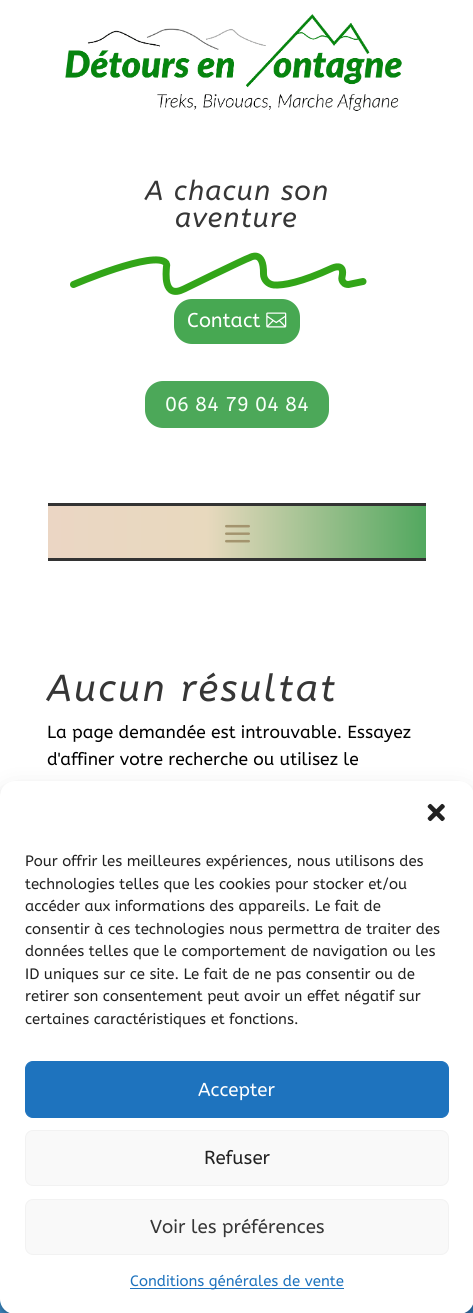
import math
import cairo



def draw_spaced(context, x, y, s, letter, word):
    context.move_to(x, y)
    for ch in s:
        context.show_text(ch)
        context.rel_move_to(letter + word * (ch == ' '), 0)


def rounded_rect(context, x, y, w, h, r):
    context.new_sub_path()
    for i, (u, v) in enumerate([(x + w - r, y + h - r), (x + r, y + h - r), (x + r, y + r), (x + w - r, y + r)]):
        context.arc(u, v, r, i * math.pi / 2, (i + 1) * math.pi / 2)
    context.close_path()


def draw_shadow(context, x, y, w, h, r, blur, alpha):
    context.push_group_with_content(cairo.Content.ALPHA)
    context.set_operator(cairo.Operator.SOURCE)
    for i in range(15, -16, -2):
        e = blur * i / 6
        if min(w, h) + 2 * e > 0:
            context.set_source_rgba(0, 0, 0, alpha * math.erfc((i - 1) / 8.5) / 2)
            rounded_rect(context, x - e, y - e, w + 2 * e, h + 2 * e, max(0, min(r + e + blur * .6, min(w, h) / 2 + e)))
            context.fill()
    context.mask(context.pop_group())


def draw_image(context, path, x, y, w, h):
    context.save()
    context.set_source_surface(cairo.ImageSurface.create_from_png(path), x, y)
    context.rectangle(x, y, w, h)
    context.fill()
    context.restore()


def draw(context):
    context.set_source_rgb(1, 1, 1)
    context.paint()
    draw_image(context, "images/1.png", 65, 14, 337, 97)
    context.new_path()
    context.move_to(73.5, 284.5)
    context.curve_to(73.5, 284.5, 155, 249.5, 166, 263)
    context.curve_to(166.5, 264, 167, 265, 166.5, 266.5)
    context.curve_to(166, 272.5, 163, 299.5, 184, 289)
    context.curve_to(184, 289, 245, 259, 250, 257.5)
    context.curve_to(250, 257.5, 264, 249, 263.5, 274)
    context.curve_to(263.5, 279.5, 268, 284.5, 274, 285)
    context.curve_to(283.5, 285.5, 301, 282.5, 332.5, 268)
    context.curve_to(332.5, 268, 345.5, 262, 342, 277)
    context.curve_to(341.5, 279, 342, 281, 343.5, 282.5)
    context.curve_to(344.5, 284, 346.5, 284.5, 348.5, 284.5)
    context.line_to(363, 281.5)
    context.set_source_rgb(50 / 255, 165 / 255, 24 / 255)
    context.set_line_width(7)
    context.set_line_cap(cairo.LineCap.ROUND)
    context.stroke()
    context.set_source_rgb(71 / 255, 168 / 255, 82 / 255)
    rounded_rect(context, 174, 299, 126, 45, 18)
    context.fill()
    draw_image(context, "images/2.png", 266, 312, 21, 16)
    context.set_source_rgb(76 / 255, 168 / 255, 89 / 255)
    rounded_rect(context, 145, 381, 184, 47, 18)
    context.fill()
    gradient = cairo.LinearGradient(48, 531, 426, 531)
    gradient.add_color_stop_rgba(0, 245 / 255, 243 / 255, 227 / 255, 1)
    gradient.add_color_stop_rgba(0, 241 / 255, 245 / 255, 227 / 255, 1)
    gradient.add_color_stop_rgba(0, 235 / 255, 214 / 255, 196 / 255, 1)
    gradient.add_color_stop_rgba(0.42, 232 / 255, 217 / 255, 190 / 255, 1)
    gradient.add_color_stop_rgba(1, 82 / 255, 168 / 255, 95 / 255, 1)
    gradient.add_color_stop_rgba(1, 236 / 255, 247 / 255, 230 / 255, 1)
    gradient.add_color_stop_rgba(1, 229 / 255, 245 / 255, 225 / 255, 1)
    gradient.add_color_stop_rgba(1, 219 / 255, 242 / 255, 212 / 255, 1)
    gradient.add_color_stop_rgba(1, 228 / 255, 245 / 255, 224 / 255, 1)
    gradient.add_color_stop_rgba(1, 229 / 255, 248 / 255, 230 / 255, 1)
    context.set_source(gradient)
    context.rectangle(48, 506, 378, 52)
    context.fill()
    context.set_source_rgb(51 / 255, 51 / 255, 51 / 255)
    context.rectangle(48, 503, 378, 3)
    context.fill()
    context.rectangle(48, 558, 378, 3)
    context.fill()
    draw_image(context, "images/3.png", 225, 524, 25, 19)
    draw_image(context, "images/4.png", 0, 1299, 473, 14)
    context.set_source_rgb(0, 0, 0)
    draw_shadow(context, 0, 789, 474, 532, 15, 4, 0.23)
    draw_shadow(context, 0, 794, 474, 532, 15, 12.5, 0.19)
    context.set_source_rgb(1, 1, 1)
    rounded_rect(context, 0, 781, 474, 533, 15)
    context.fill()
    draw_image(context, "images/5.png", 427, 803, 18, 19)
    context.set_source_rgb(30 / 255, 115 / 255, 190 / 255)
    rounded_rect(context, 25.5, 1061.5, 423, 56, 7.5)
    context.fill_preserve()
    context.set_line_width(1)
    context.set_line_cap(cairo.LineCap.BUTT)
    context.stroke()
    context.set_source_rgb(249 / 255, 249 / 255, 249 / 255)
    rounded_rect(context, 25.5, 1130.5, 423, 55, 7.5)
    context.fill_preserve()
    context.set_source_rgb(242 / 255, 242 / 255, 242 / 255)
    context.stroke()
    context.set_source_rgb(249 / 255, 249 / 255, 249 / 255)
    rounded_rect(context, 25.5, 1199.5, 423, 55, 7.5)
    context.fill_preserve()
    context.set_source_rgb(242 / 255, 242 / 255, 242 / 255)
    context.stroke()
    context.set_source_rgb(30 / 255, 115 / 255, 190 / 255)
    context.rectangle(130, 1288, 214, 1)
    context.fill()
    context.select_font_face("ABeeZee", cairo.FontSlant.ITALIC)
    context.set_font_size(27.5)
    context.set_source_rgb(54 / 255, 54 / 255, 54 / 255)
    draw_spaced(context, 145, 200, "A chacun son", 1.25, 0)
    draw_spaced(context, 175, 227, "aventure", 1.25, 0)
    context.select_font_face("ABeeZee")
    context.set_font_size(20)
    context.set_source_rgb(1, 1, 1)
    context.move_to(187, 327)
    context.show_text("Contact")
    context.set_source_rgb(247 / 255, 1, 247 / 255)
    context.move_to(165, 411)
    context.show_text("06 84 79 04 84")
    context.select_font_face("ABeeZee", cairo.FontSlant.ITALIC)
    context.set_font_size(37.5)
    context.set_source_rgb(54 / 255, 54 / 255, 54 / 255)
    draw_spaced(context, 47, 701, "Aucun résultat", 2.5, 0)
    context.select_font_face("ABeeZee")
    context.set_font_size(17.5)
    context.set_source_rgb(0, 0, 0)
    context.move_to(47, 738)
    context.show_text("La page demandée est introuvable. Essayez")
    context.move_to(47, 765)
    context.show_text("d'affiner votre recherche ou utilisez le")
    context.set_font_size(15)
    context.set_source_rgb(34 / 255, 34 / 255, 34 / 255)
    context.move_to(25, 866)
    context.show_text("Pour offrir les meilleures expériences, nous utilisons des")
    context.move_to(25, 889)
    context.show_text("technologies telles que les cookies pour stocker et/ou")
    context.move_to(25, 911)
    context.show_text("accéder aux informations des appareils. Le fait de")
    context.move_to(25, 934)
    context.show_text("consentir à ces technologies nous permettra de traiter des")
    context.move_to(25, 956)
    context.show_text("données telles que le comportement de navigation ou les")
    context.move_to(25, 979)
    context.show_text("ID uniques sur ce site. Le fait de ne pas consentir ou de")
    context.move_to(25, 1001)
    context.show_text("retirer son consentement peut avoir un effet négatif sur")
    context.move_to(25, 1024)
    context.show_text("certaines caractéristiques et fonctions.")
    context.set_font_size(18.75)
    context.set_source_rgb(1, 1, 1)
    context.move_to(198, 1096)
    context.show_text("Accepter")
    context.set_source_rgb(34 / 255, 34 / 255, 34 / 255)
    context.move_to(204, 1164)
    context.show_text("Refuser")
    context.set_source_rgb(54 / 255, 54 / 255, 54 / 255)
    context.move_to(150, 1233)
    context.show_text("Voir les préférences")
    context.set_font_size(15)
    context.set_source_rgb(30 / 255, 115 / 255, 190 / 255)
    context.move_to(130, 1286)
    context.show_text("Conditions générales de vente")


surface = cairo.ImageSurface(cairo.Format.RGB24, 473, 1313)
context = cairo.Context(surface)
options = cairo.FontOptions()
options.set_hint_metrics(cairo.HintMetrics.OFF)
options.set_hint_style(cairo.HintStyle.NONE)
context.set_font_options(options)
context.set_miter_limit(4)
draw(context)
surface.write_to_png("out.png")
